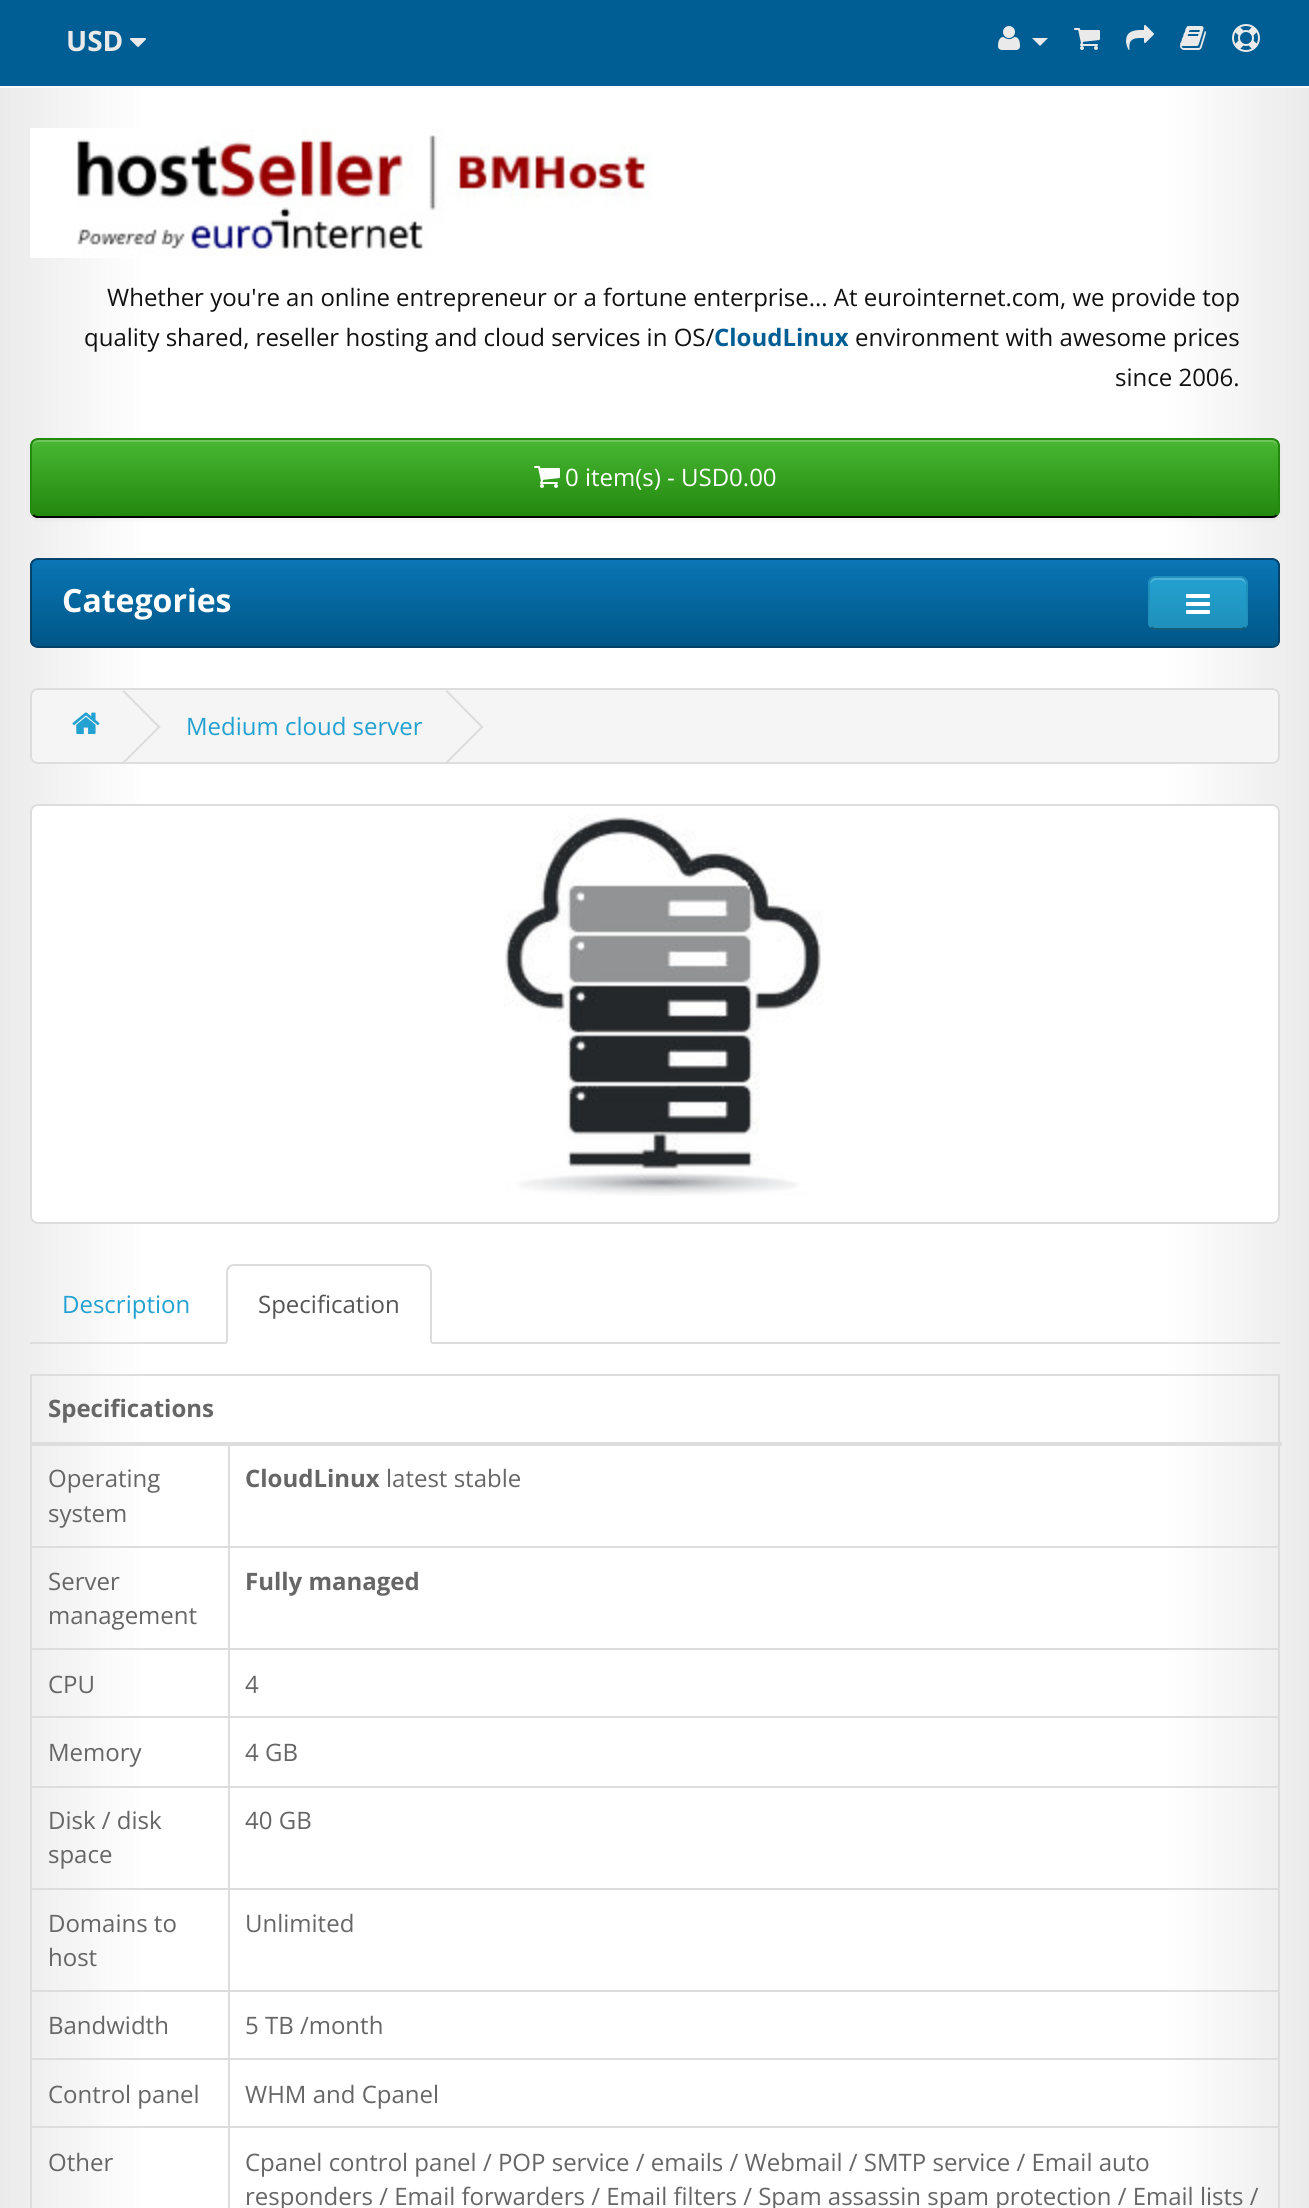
import math
import cairo



def rounded_rect(context, x, y, w, h, r):
    context.new_sub_path()
    for i, (u, v) in enumerate([(x + w - r, y + h - r), (x + r, y + h - r), (x + r, y + r), (x + w - r, y + r)]):
        context.arc(u, v, r, i * math.pi / 2, (i + 1) * math.pi / 2)
    context.close_path()


def draw_shadow(context, x, y, w, h, r, blur, alpha):
    context.push_group_with_content(cairo.Content.ALPHA)
    context.set_operator(cairo.Operator.SOURCE)
    for i in range(15, -16, -2):
        e = blur * i / 6
        if min(w, h) + 2 * e > 0:
            context.set_source_rgba(0, 0, 0, alpha * math.erfc((i - 1) / 8.5) / 2)
            rounded_rect(context, x - e, y - e, w + 2 * e, h + 2 * e, max(0, min(r + e + blur * .6, min(w, h) / 2 + e)))
            context.fill()
    context.mask(context.pop_group())


def draw_image(context, path, x, y, w, h):
    context.save()
    context.set_source_surface(cairo.ImageSurface.create_from_png(path), x, y)
    context.rectangle(x, y, w, h)
    context.fill()
    context.restore()


def draw(context):
    context.set_source_rgb(1, 1, 1)
    context.paint()
    gradient = cairo.LinearGradient(0, 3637, 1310, 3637)
    gradient.add_color_stop_rgba(0, 234 / 255, 234 / 255, 234 / 255, 1)
    gradient.add_color_stop_rgba(0.11, 1, 1, 1, 1)
    gradient.add_color_stop_rgba(0.89, 1, 1, 1, 1)
    gradient.add_color_stop_rgba(1, 234 / 255, 234 / 255, 234 / 255, 1)
    context.set_source(gradient)
    context.rectangle(0, 88, 1309, 2120)
    context.fill()
    context.set_source_rgb(0, 94 / 255, 148 / 255)
    context.rectangle(0, 0, 1309, 86)
    context.fill()
    context.set_source_rgb(250 / 255, 250 / 255, 250 / 255)
    context.rectangle(0, 86, 1309, 2)
    context.fill()
    draw_image(context, "images/1.png", 130, 38, 16, 9)
    draw_image(context, "images/2.png", 998, 26, 22, 24)
    context.set_source_rgb(234 / 255, 234 / 255, 234 / 255)
    context.new_path()
    context.move_to(1032, 38)
    context.line_to(1048, 38)
    context.line_to(1040, 46)
    context.close_path()
    context.fill()
    draw_image(context, "images/3.png", 1074, 28, 26, 22)
    draw_image(context, "images/4.png", 1126, 25, 28, 25)
    draw_image(context, "images/5.png", 1180, 26, 26, 24)
    draw_image(context, "images/6.png", 1232, 24, 28, 28)
    draw_image(context, "images/7.png", 30, 128, 623, 130)
    context.set_source_rgb(0, 0, 0)
    draw_shadow(context, 30, 440, 1250, 80, 8, 2, 0.05)
    context.save()
    rounded_rect(context, 30, 438, 1250, 80, 8)
    context.clip()
    gradient = cairo.LinearGradient(655, 440, 655, 516)
    gradient.add_color_stop_rgba(0, 73 / 255, 183 / 255, 51 / 255, 1)
    gradient.add_color_stop_rgba(1, 34 / 255, 136 / 255, 14 / 255, 1)
    context.set_source(gradient)
    context.rectangle(30, 440, 1250, 76)
    context.fill()
    context.restore()
    context.set_source_rgba(1, 1, 1, 0.2)
    context.new_path()
    context.move_to(38, 442)
    context.line_to(1272, 442)
    context.curve_to(1275, 442, 1278, 445, 1278, 448)
    context.line_to(1278, 446)
    context.curve_to(1278, 443, 1275, 440, 1272, 440)
    context.line_to(38, 440)
    context.curve_to(35, 440, 32, 443, 32, 446)
    context.line_to(32, 448)
    context.curve_to(32, 445, 35, 442, 38, 442)
    context.close_path()
    context.fill()
    context.new_path()
    context.move_to(1277, 515)
    context.curve_to(1275.5, 516.5, 1274, 517, 1272, 517)
    context.line_to(38, 517)
    context.curve_to(36, 517, 34.5, 516.5, 33, 515)
    context.set_source_rgb(0, 0, 0)
    context.stroke()
    context.new_path()
    context.move_to(33, 515)
    context.line_to(31, 511.5)
    context.line_to(31, 445.5)
    context.line_to(32.5, 441.5)
    context.curve_to(34, 440, 36, 439, 38, 439)
    context.line_to(1272, 439)
    context.curve_to(1274, 439, 1276, 440, 1277.5, 441.5)
    context.line_to(1279, 445.5)
    context.line_to(1279, 511.5)
    context.line_to(1277, 515)
    context.set_source_rgb(34 / 255, 136 / 255, 14 / 255)
    context.stroke()
    draw_image(context, "images/8.png", 534, 466, 26, 22)
    context.save()
    rounded_rect(context, 30, 558, 1250, 90, 8)
    context.clip()
    gradient = cairo.LinearGradient(655, 560, 655, 646)
    gradient.add_color_stop_rgba(0, 9 / 255, 118 / 255, 181 / 255, 1)
    gradient.add_color_stop_rgba(1, 0, 86 / 255, 135 / 255, 1)
    context.set_source(gradient)
    context.rectangle(30, 560, 1250, 86)
    context.fill()
    context.restore()
    rounded_rect(context, 31, 559, 1248, 88, 7)
    context.set_source_rgb(0, 67 / 255, 106 / 255)
    context.stroke()
    context.save()
    rounded_rect(context, 1148, 576, 100, 54, 8)
    context.clip()
    gradient = cairo.LinearGradient(1198, 578, 1198, 628)
    gradient.add_color_stop_rgba(0, 35 / 255, 161 / 255, 209 / 255, 1)
    gradient.add_color_stop_rgba(1, 31 / 255, 144 / 255, 187 / 255, 1)
    context.set_source(gradient)
    context.rectangle(1148, 578, 100, 50)
    context.fill()
    context.restore()
    context.set_source_rgba(1, 1, 1, 0.2)
    context.new_path()
    context.move_to(1156, 580)
    context.line_to(1240, 580)
    context.curve_to(1243, 580, 1246, 583, 1246, 586)
    context.curve_to(1246, 574, 1235, 578, 1226, 578)
    context.line_to(1170, 578)
    context.curve_to(1161, 578, 1150, 574, 1150, 586)
    context.curve_to(1150, 583, 1153, 580, 1156, 580)
    context.close_path()
    context.fill()
    context.new_path()
    context.move_to(1245, 627)
    context.curve_to(1243.5, 628.5, 1242, 629, 1240, 629)
    context.line_to(1156, 629)
    context.curve_to(1154, 629, 1152.5, 628.5, 1151, 627)
    context.set_source_rgb(20 / 255, 94 / 255, 122 / 255)
    context.stroke()
    context.new_path()
    context.move_to(1151, 627)
    context.curve_to(1149.5, 625.5, 1149, 624, 1149, 622)
    context.line_to(1149, 584)
    context.curve_to(1149, 582, 1149.5, 580.5, 1151, 579)
    context.curve_to(1152.5, 577.5, 1154, 577, 1156, 577)
    context.line_to(1240, 577)
    context.curve_to(1242, 577, 1243.5, 577.5, 1245, 579)
    context.curve_to(1246.5, 580.5, 1247, 582, 1247, 584)
    context.line_to(1247, 622)
    context.curve_to(1247, 624, 1246.5, 625.5, 1245, 627)
    context.set_source_rgb(31 / 255, 144 / 255, 187 / 255)
    context.stroke()
    draw_image(context, "images/9.png", 1186, 594, 24, 20)
    context.set_source_rgb(245 / 255, 245 / 255, 245 / 255)
    rounded_rect(context, 31, 689, 1248, 74, 7)
    context.fill_preserve()
    context.set_source_rgb(221 / 255, 221 / 255, 221 / 255)
    context.stroke()
    draw_image(context, "images/10.png", 72, 712, 28, 22)
    context.new_path()
    context.move_to(122.5, 691.5)
    context.line_to(124, 690)
    context.line_to(160.5, 727)
    context.line_to(159, 728.5)
    context.close_path()
    context.fill()
    context.new_path()
    context.move_to(122.5, 762)
    context.line_to(159, 725.5)
    context.line_to(160.5, 727)
    context.line_to(124, 763.5)
    context.close_path()
    context.fill()
    context.new_path()
    context.move_to(445.5, 691.5)
    context.line_to(447, 690)
    context.line_to(483.5, 727)
    context.line_to(482, 728.5)
    context.close_path()
    context.fill()
    context.new_path()
    context.move_to(445.5, 762)
    context.line_to(482, 725.5)
    context.line_to(483.5, 727)
    context.line_to(447, 763.5)
    context.close_path()
    context.fill()
    context.set_source_rgb(1, 1, 1)
    rounded_rect(context, 31, 805, 1248, 418, 7)
    context.fill_preserve()
    context.set_source_rgb(221 / 255, 221 / 255, 221 / 255)
    context.stroke()
    draw_image(context, "images/11.png", 504, 814, 320, 382)
    context.rectangle(30, 1342, 1250, 2)
    context.fill()
    context.set_source_rgb(1, 1, 1)
    context.new_path()
    context.move_to(234, 1264)
    context.line_to(424, 1264)
    context.curve_to(428.5, 1264, 432, 1267.5, 432, 1272)
    context.line_to(432, 1344)
    context.line_to(226, 1344)
    context.line_to(226, 1272)
    context.curve_to(226, 1267.5, 229.5, 1264, 234, 1264)
    context.close_path()
    context.fill()
    context.set_source_rgb(221 / 255, 221 / 255, 221 / 255)
    context.new_path()
    context.move_to(234, 1264)
    context.curve_to(232, 1264, 230, 1265, 228, 1266)
    context.line_to(230, 1268)
    context.curve_to(231, 1267, 232, 1266, 234, 1266)
    context.line_to(424, 1266)
    context.curve_to(426, 1266, 427, 1267, 428, 1268)
    context.line_to(430, 1266)
    context.curve_to(428, 1265, 426, 1264, 424, 1264)
    context.close_path()
    context.fill()
    context.new_path()
    context.move_to(432, 1344)
    context.line_to(432, 1272)
    context.curve_to(432, 1270, 431, 1268, 430, 1266)
    context.line_to(428, 1268)
    context.line_to(430, 1271)
    context.line_to(430, 1342)
    context.close_path()
    context.fill()
    context.new_path()
    context.move_to(226, 1344)
    context.line_to(228, 1342)
    context.line_to(228, 1271)
    context.line_to(230, 1268)
    context.line_to(228, 1266)
    context.curve_to(227, 1268, 226, 1270, 226, 1272)
    context.close_path()
    context.fill()
    context.rectangle(30, 1374, 1250, 2)
    context.fill()
    context.rectangle(1278, 1374, 2, 834)
    context.fill()
    context.rectangle(30, 1374, 2, 834)
    context.fill()
    context.rectangle(228, 1546, 1052, 2)
    context.fill()
    context.rectangle(228, 1648, 1052, 2)
    context.fill()
    context.rectangle(228, 1716, 1052, 2)
    context.fill()
    context.rectangle(228, 1786, 1052, 2)
    context.fill()
    context.rectangle(228, 1888, 1052, 2)
    context.fill()
    context.rectangle(228, 1990, 1052, 2)
    context.fill()
    context.rectangle(228, 2058, 1052, 2)
    context.fill()
    context.rectangle(228, 2126, 1052, 2)
    context.fill()
    context.rectangle(228, 2126, 2, 82)
    context.fill()
    context.rectangle(30, 2126, 200, 2)
    context.fill()
    context.rectangle(228, 2058, 2, 70)
    context.fill()
    context.rectangle(30, 2058, 200, 2)
    context.fill()
    context.rectangle(228, 1990, 2, 70)
    context.fill()
    context.rectangle(30, 1990, 200, 2)
    context.fill()
    context.rectangle(228, 1888, 2, 104)
    context.fill()
    context.rectangle(30, 1888, 200, 2)
    context.fill()
    context.rectangle(228, 1786, 2, 104)
    context.fill()
    context.rectangle(30, 1786, 200, 2)
    context.fill()
    context.rectangle(228, 1716, 2, 72)
    context.fill()
    context.rectangle(30, 1716, 200, 2)
    context.fill()
    context.rectangle(228, 1648, 2, 70)
    context.fill()
    context.rectangle(30, 1648, 200, 2)
    context.fill()
    context.rectangle(228, 1546, 2, 104)
    context.fill()
    context.rectangle(30, 1546, 200, 2)
    context.fill()
    context.rectangle(228, 1442, 2, 106)
    context.fill()
    context.rectangle(30, 1442, 1252, 4)
    context.fill()
    context.select_font_face("Open Sans", cairo.FontSlant.NORMAL, cairo.FontWeight.BOLD)
    context.set_font_size(28)
    context.set_source_rgb(234 / 255, 234 / 255, 234 / 255)
    context.move_to(66, 51)
    context.show_text("USD")
    context.select_font_face("Open Sans")
    context.set_font_size(24)
    context.set_source_rgb(17 / 255, 17 / 255, 17 / 255)
    context.move_to(107, 306)
    context.show_text("Whether you're an online entrepreneur or a fortune enterprise... At eurointernet.com, we provide top")
    context.move_to(84, 346)
    context.show_text("quality shared, reseller hosting and cloud services in OS/")
    context.select_font_face("Open Sans", cairo.FontSlant.NORMAL, cairo.FontWeight.BOLD)
    context.set_source_rgb(0, 94 / 255, 148 / 255)
    context.move_to(714, 346)
    context.show_text("CloudLinux")
    context.select_font_face("Open Sans")
    context.set_source_rgb(17 / 255, 17 / 255, 17 / 255)
    context.move_to(855, 346)
    context.show_text("environment with awesome prices")
    context.move_to(1115, 386)
    context.show_text("since 2006.")
    context.set_source_rgb(1, 1, 1)
    context.move_to(565, 486)
    context.show_text("0 item(s) - USD0.00")
    context.select_font_face("Open Sans", cairo.FontSlant.NORMAL, cairo.FontWeight.BOLD)
    context.set_font_size(32)
    context.move_to(62, 612)
    context.show_text("Categories")
    context.select_font_face("Open Sans")
    context.set_font_size(24)
    context.set_source_rgb(35 / 255, 161 / 255, 209 / 255)
    context.move_to(186, 735)
    context.show_text("Medium cloud server")
    context.move_to(62, 1313)
    context.show_text("Description")
    context.set_source_rgb(85 / 255, 85 / 255, 85 / 255)
    context.move_to(258, 1313)
    context.show_text("Specification")
    context.select_font_face("Open Sans", cairo.FontSlant.NORMAL, cairo.FontWeight.BOLD)
    context.set_source_rgb(102 / 255, 102 / 255, 102 / 255)
    context.move_to(48, 1417)
    context.show_text("Specifications")
    context.select_font_face("Open Sans")
    context.move_to(48, 1487)
    context.show_text("Operating")
    context.move_to(48, 1522)
    context.show_text("system")
    context.select_font_face("Open Sans", cairo.FontSlant.NORMAL, cairo.FontWeight.BOLD)
    context.move_to(245, 1487)
    context.show_text("CloudLinux")
    context.select_font_face("Open Sans")
    context.move_to(386, 1487)
    context.show_text("latest stable")
    context.move_to(48, 1590)
    context.show_text("Server")
    context.move_to(48, 1624)
    context.show_text("management")
    context.select_font_face("Open Sans", cairo.FontSlant.NORMAL, cairo.FontWeight.BOLD)
    context.move_to(245, 1590)
    context.show_text("Fully managed")
    context.select_font_face("Open Sans")
    context.move_to(48, 1693)
    context.show_text("CPU")
    context.move_to(245, 1693)
    context.show_text("4")
    context.move_to(48, 1761)
    context.show_text("Memory")
    context.move_to(245, 1761)
    context.show_text("4 GB")
    context.move_to(48, 1829)
    context.show_text("Disk / disk")
    context.move_to(48, 1863)
    context.show_text("space")
    context.move_to(245, 1829)
    context.show_text("40 GB")
    context.move_to(48, 1932)
    context.show_text("Domains to")
    context.move_to(48, 1966)
    context.show_text("host")
    context.move_to(245, 1932)
    context.show_text("Unlimited")
    context.move_to(48, 2034)
    context.show_text("Bandwidth")
    context.move_to(245, 2034)
    context.show_text("5 TB /month")
    context.move_to(48, 2103)
    context.show_text("Control panel")
    context.move_to(245, 2103)
    context.show_text("WHM and Cpanel")
    context.move_to(48, 2171)
    context.show_text("Other")
    context.move_to(245, 2171)
    context.show_text("Cpanel control panel / POP service / emails / Webmail / SMTP service / Email auto")
    context.move_to(245, 2205)
    context.show_text("responders / Email forwarders / Email filters / Spam assassin spam protection / Email lists /")


surface = cairo.ImageSurface(cairo.Format.RGB24, 1309, 2208)
context = cairo.Context(surface)
options = cairo.FontOptions()
options.set_hint_metrics(cairo.HintMetrics.OFF)
options.set_hint_style(cairo.HintStyle.NONE)
context.set_font_options(options)
context.set_miter_limit(4)
draw(context)
surface.write_to_png("out.png")
